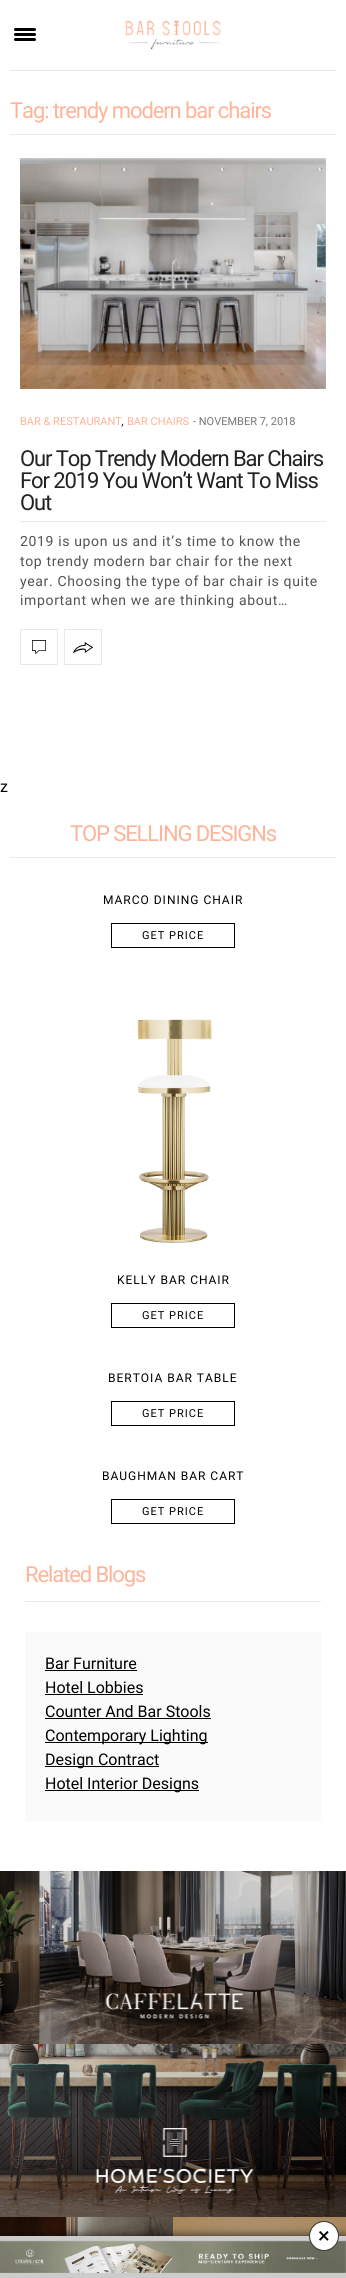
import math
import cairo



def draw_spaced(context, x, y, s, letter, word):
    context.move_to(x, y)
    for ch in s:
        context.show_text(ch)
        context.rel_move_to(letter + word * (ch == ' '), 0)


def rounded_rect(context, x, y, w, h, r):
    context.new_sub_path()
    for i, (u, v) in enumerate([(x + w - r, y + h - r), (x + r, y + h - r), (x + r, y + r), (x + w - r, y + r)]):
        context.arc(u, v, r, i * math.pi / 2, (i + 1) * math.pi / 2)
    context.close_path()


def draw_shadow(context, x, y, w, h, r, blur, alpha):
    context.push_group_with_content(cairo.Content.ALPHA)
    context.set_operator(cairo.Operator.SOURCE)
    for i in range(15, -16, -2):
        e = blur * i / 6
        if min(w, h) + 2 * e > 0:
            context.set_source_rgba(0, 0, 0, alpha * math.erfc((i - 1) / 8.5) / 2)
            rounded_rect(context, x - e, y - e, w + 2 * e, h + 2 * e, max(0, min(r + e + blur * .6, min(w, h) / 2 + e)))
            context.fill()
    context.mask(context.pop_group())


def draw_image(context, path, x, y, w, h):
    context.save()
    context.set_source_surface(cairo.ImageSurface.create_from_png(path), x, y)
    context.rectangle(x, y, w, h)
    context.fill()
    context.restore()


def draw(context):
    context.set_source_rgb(1, 1, 1)
    context.paint()
    context.set_source_rgb(230 / 255, 230 / 255, 230 / 255)
    context.rectangle(10, 70, 326, 1)
    context.fill()
    context.set_source_rgb(0, 0, 0)
    rounded_rect(context, 14, 28, 22, 3, 1.5)
    context.fill()
    rounded_rect(context, 14, 33, 22, 3, 1.5)
    context.fill()
    rounded_rect(context, 14, 38, 22, 3, 1.5)
    context.fill()
    draw_image(context, "images/1.png", 125, 20, 97, 30)
    context.set_source_rgb(234 / 255, 234 / 255, 234 / 255)
    context.rectangle(10, 134, 326, 1)
    context.fill()
    draw_image(context, "images/2.png", 20, 158, 306, 231)
    context.rectangle(20, 521, 306, 1)
    context.fill()
    context.rectangle(20.5, 629.5, 37, 35)
    context.set_source_rgb(233 / 255, 233 / 255, 233 / 255)
    context.set_line_width(1)
    context.stroke()
    draw_image(context, "images/3.png", 32, 640, 14, 14)
    context.rectangle(64.5, 629.5, 37, 35)
    context.stroke()
    draw_image(context, "images/4.png", 73, 642, 20, 11)
    context.set_source_rgb(234 / 255, 234 / 255, 234 / 255)
    context.rectangle(10, 857, 326, 1)
    context.fill()
    context.rectangle(111.5, 923.5, 123, 24)
    context.set_source_rgb(0, 0, 0)
    context.stroke()
    draw_image(context, "images/5.png", 137, 1019, 75, 224)
    context.rectangle(111.5, 1303.5, 123, 24)
    context.stroke()
    context.rectangle(111.5, 1401.5, 123, 24)
    context.stroke()
    context.rectangle(111.5, 1499.5, 123, 24)
    context.stroke()
    context.set_source_rgb(234 / 255, 234 / 255, 234 / 255)
    context.rectangle(25, 1601, 296, 1)
    context.fill()
    context.set_source_rgb(250 / 255, 250 / 255, 250 / 255)
    context.rectangle(25, 1632, 296, 189)
    context.fill()
    context.set_source_rgb(0, 0, 0)
    context.rectangle(45, 1670, 92, 1)
    context.fill()
    context.rectangle(45, 1694, 98, 1)
    context.fill()
    context.rectangle(45, 1718, 166, 1)
    context.fill()
    context.rectangle(45, 1742, 163, 1)
    context.fill()
    context.rectangle(45, 1766, 114, 1)
    context.fill()
    context.rectangle(45, 1790, 154, 1)
    context.fill()
    draw_image(context, "images/6.png", 0, 1871, 346, 173)
    draw_image(context, "images/7.png", 105, 1993, 139, 26)
    draw_image(context, "images/8.png", 0, 2044, 346, 173)
    draw_image(context, "images/9.png", 95, 2128, 159, 66)
    draw_image(context, "images/10.png", 0, 2217, 173, 19)
    draw_image(context, "images/11.png", 173, 2217, 173, 19)
    context.set_source_rgb(0, 0, 0)
    draw_shadow(context, 0, 2236, 346, 42, 0, 5, 0.8)
    context.set_source_rgb(204 / 255, 204 / 255, 204 / 255)
    context.rectangle(0, 2236, 346, 42)
    context.fill()
    draw_image(context, "images/12.png", 0, 2240, 346, 33)
    context.set_source_rgb(1, 1, 1)
    context.arc(324, 2236, 14.5, 0, 2 * math.pi)
    context.fill_preserve()
    context.set_source_rgb(51 / 255, 51 / 255, 51 / 255)
    context.stroke()
    context.select_font_face("Roboto")
    context.set_font_size(22)
    context.set_source_rgb(254 / 255, 180 / 255, 152 / 255)
    draw_spaced(context, 10, 118, "Tag: trendy modern bar chairs", -1.1, 0)
    context.set_font_size(11)
    context.move_to(20, 425)
    context.show_text("BAR & RESTAURANT")
    context.select_font_face("Roboto", cairo.FontSlant.ITALIC)
    context.set_source_rgb(0, 0, 0)
    context.move_to(122, 425)
    context.show_text(",")
    context.select_font_face("Roboto")
    context.set_source_rgb(254 / 255, 180 / 255, 152 / 255)
    context.move_to(127, 425)
    context.show_text("BAR CHAIRS")
    context.set_source_rgb(118 / 255, 118 / 255, 118 / 255)
    context.move_to(193, 425)
    context.show_text("- NOVEMBER 7, 2018")
    context.set_font_size(22)
    context.set_source_rgb(34 / 255, 34 / 255, 34 / 255)
    draw_spaced(context, 20, 466, "Our Top Trendy Modern Bar Chairs", -1.1, 0)
    draw_spaced(context, 20, 488, "For 2019 You Won’t Want To Miss", -1.1, 0)
    draw_spaced(context, 20, 510, "Out", -1.1, 0)
    context.set_font_size(14)
    context.set_source_rgb(84 / 255, 83 / 255, 83 / 255)
    draw_spaced(context, 20, 546, "2019 is upon us and it’s time to know the", 0.65, 0)
    draw_spaced(context, 20, 566, "top trendy modern bar chair for the next", 0.65, 0)
    draw_spaced(context, 20, 586, "year. Choosing the type of bar chair is quite", 0.65, 0)
    draw_spaced(context, 20, 605, "important when we are thinking about…", 0.65, 0)
    context.set_font_size(16)
    context.set_source_rgb(0, 0, 0)
    context.move_to(0, 792)
    context.show_text("z")
    context.set_font_size(22)
    context.set_source_rgb(254 / 255, 180 / 255, 152 / 255)
    draw_spaced(context, 70, 841, "TOP SELLING DESIGNs", -1.1, 0)
    context.set_font_size(12)
    context.set_source_rgb(0, 0, 0)
    draw_spaced(context, 103, 904, "MARCO DINING CHAIR", 1, 0)
    context.set_font_size(11)
    draw_spaced(context, 142, 939, "GET PRICE", 1, 0)
    context.set_font_size(12)
    draw_spaced(context, 117, 1284, "KELLY BAR CHAIR", 1, 0)
    context.set_font_size(11)
    draw_spaced(context, 142, 1319, "GET PRICE", 1, 0)
    context.set_font_size(12)
    draw_spaced(context, 108, 1382, "BERTOIA BAR TABLE", 1, 0)
    context.set_font_size(11)
    draw_spaced(context, 142, 1417, "GET PRICE", 1, 0)
    context.set_font_size(12)
    draw_spaced(context, 102, 1480, "BAUGHMAN BAR CART", 1, 0)
    context.set_font_size(11)
    draw_spaced(context, 142, 1515, "GET PRICE", 1, 0)
    context.set_font_size(22)
    context.set_source_rgb(254 / 255, 180 / 255, 152 / 255)
    draw_spaced(context, 25, 1582, "Related Blogs", -1.1, 0)
    context.set_font_size(16)
    context.set_source_rgb(0, 0, 0)
    context.move_to(45, 1669)
    context.show_text("Bar Furniture")
    context.move_to(45, 1693)
    context.show_text("Hotel Lobbies")
    context.move_to(45, 1717)
    context.show_text("Counter And Bar Stools")
    context.move_to(45, 1741)
    context.show_text("Contemporary Lighting")
    context.move_to(45, 1765)
    context.show_text("Design Contract")
    context.move_to(45, 1789)
    context.show_text("Hotel Interior Designs")
    context.set_font_size(22)
    context.move_to(318, 2243)
    context.show_text("×")


surface = cairo.ImageSurface(cairo.Format.RGB24, 346, 2278)
context = cairo.Context(surface)
options = cairo.FontOptions()
options.set_hint_metrics(cairo.HintMetrics.OFF)
options.set_hint_style(cairo.HintStyle.NONE)
context.set_font_options(options)
context.set_miter_limit(4)
draw(context)
surface.write_to_png("out.png")
